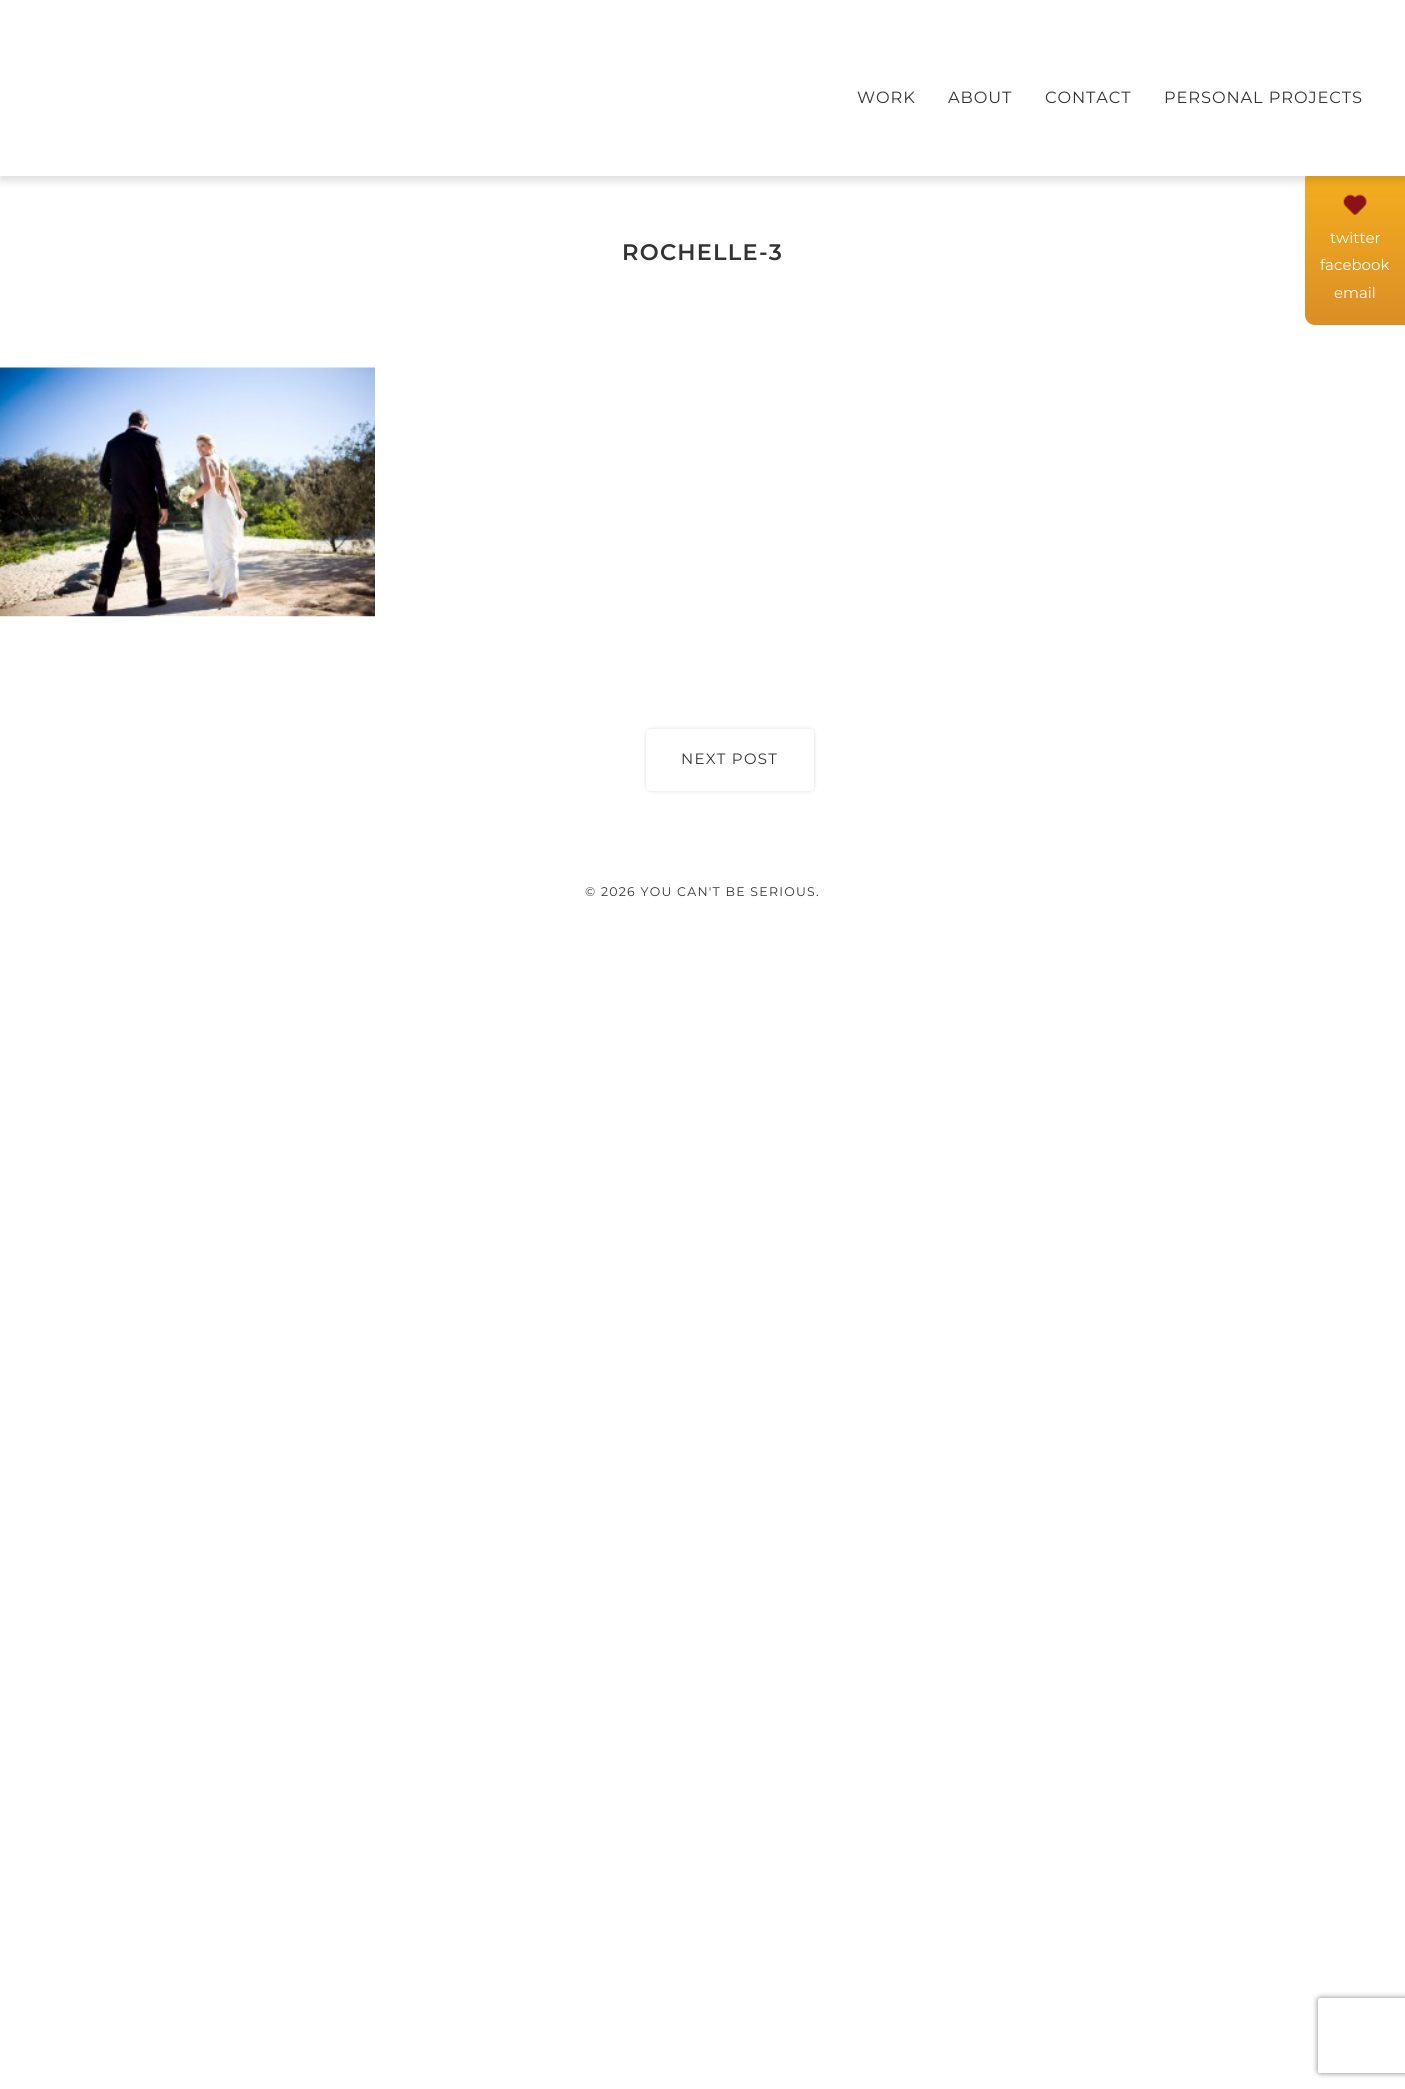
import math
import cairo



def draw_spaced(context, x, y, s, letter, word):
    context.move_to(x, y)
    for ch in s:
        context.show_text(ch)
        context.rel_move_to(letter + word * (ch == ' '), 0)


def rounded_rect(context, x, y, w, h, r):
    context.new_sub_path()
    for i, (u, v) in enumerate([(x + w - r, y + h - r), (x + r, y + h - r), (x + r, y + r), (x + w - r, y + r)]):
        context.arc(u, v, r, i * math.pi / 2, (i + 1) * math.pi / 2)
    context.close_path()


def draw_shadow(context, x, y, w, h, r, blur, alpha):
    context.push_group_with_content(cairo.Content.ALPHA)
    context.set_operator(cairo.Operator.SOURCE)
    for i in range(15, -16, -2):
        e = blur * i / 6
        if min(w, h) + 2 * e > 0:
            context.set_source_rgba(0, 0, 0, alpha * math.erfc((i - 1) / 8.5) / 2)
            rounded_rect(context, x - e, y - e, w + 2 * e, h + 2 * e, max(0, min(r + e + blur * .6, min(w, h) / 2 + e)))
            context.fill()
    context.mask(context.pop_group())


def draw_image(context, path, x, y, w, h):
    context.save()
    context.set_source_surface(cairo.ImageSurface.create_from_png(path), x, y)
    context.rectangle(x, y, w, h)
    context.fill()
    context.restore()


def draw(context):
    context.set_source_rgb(1, 1, 1)
    context.paint()
    gradient = cairo.LinearGradient(1355, 169, 1355, 325)
    gradient.add_color_stop_rgba(0, 245 / 255, 175 / 255, 30 / 255, 1)
    gradient.add_color_stop_rgba(1, 218 / 255, 142 / 255, 38 / 255, 1)
    context.set_source(gradient)
    context.new_path()
    context.move_to(1315, 169)
    context.line_to(1405, 169)
    context.line_to(1405, 325)
    context.line_to(1315, 325)
    context.curve_to(1309.5, 325, 1305, 320.5, 1305, 315)
    context.line_to(1305, 179)
    context.curve_to(1305, 173.5, 1309.5, 169, 1315, 169)
    context.close_path()
    context.fill()
    draw_image(context, "images/1.png", 1343, 194, 24, 21)
    context.set_source_rgb(0, 0, 0)
    draw_shadow(context, 0, -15, 1405, 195, 0, 5, 0.15)
    context.set_source_rgb(1, 1, 1)
    context.rectangle(0, 0, 1405, 176)
    context.fill()
    draw_image(context, "images/2.png", 0, 367, 375, 250)
    context.set_source_rgb(0, 0, 0)
    draw_shadow(context, 646, 729, 168, 62, 5, 2, 0.15)
    context.set_source_rgb(1, 1, 1)
    rounded_rect(context, 646, 729, 168, 62, 5)
    context.fill()
    context.save()
    context.set_fill_rule(cairo.FillRule.EVEN_ODD)
    context.new_path()
    context.move_to(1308, 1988)
    context.line_to(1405, 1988)
    context.line_to(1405, 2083)
    context.line_to(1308, 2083)
    context.close_path()
    context.move_to(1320.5, 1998)
    context.line_to(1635.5, 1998)
    context.curve_to(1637, 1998, 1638, 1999, 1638, 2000.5)
    context.line_to(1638, 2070.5)
    context.curve_to(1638, 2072, 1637, 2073, 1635.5, 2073)
    context.line_to(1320.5, 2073)
    context.curve_to(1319, 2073, 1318, 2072, 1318, 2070.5)
    context.line_to(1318, 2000.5)
    context.curve_to(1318, 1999, 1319, 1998, 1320.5, 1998)
    context.close_path()
    context.clip()
    context.set_source_rgb(128 / 255, 128 / 255, 128 / 255)
    draw_shadow(context, 1318, 1998, 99, 75, 2.5, 3, 1)
    context.restore()
    context.select_font_face("Montserrat")
    context.set_font_size(16.25)
    context.set_source_rgb(51 / 255, 51 / 255, 51 / 255)
    draw_spaced(context, 857, 103, "WORK", 0.9, 0)
    draw_spaced(context, 948, 103, "ABOUT", 0.9, 0)
    draw_spaced(context, 1045, 103, "CONTACT", 0.9, 0)
    draw_spaced(context, 1164, 103, "PERSONAL PROJECTS", 0.9, 0)
    context.select_font_face("Montserrat SemiBold")
    context.set_font_size(22.5)
    draw_spaced(context, 622, 260, "ROCHELLE-3", 1.25, 0)
    context.select_font_face("Montserrat")
    context.set_font_size(15)
    context.set_source_rgb(1, 1, 1)
    context.move_to(1330, 243)
    context.show_text("twitter")
    context.move_to(1320, 270)
    context.show_text("facebook")
    context.move_to(1334, 298)
    context.show_text("email")
    context.set_source_rgb(51 / 255, 51 / 255, 51 / 255)
    draw_spaced(context, 681, 764, "NEXT POST", 1.25, 0)
    context.set_font_size(12.5)
    draw_spaced(context, 585, 896, "© 2026 YOU CAN'T BE SERIOUS.", 1.25, 0)


surface = cairo.ImageSurface(cairo.Format.RGB24, 1405, 2089)
context = cairo.Context(surface)
options = cairo.FontOptions()
options.set_hint_metrics(cairo.HintMetrics.OFF)
options.set_hint_style(cairo.HintStyle.NONE)
context.set_font_options(options)
context.set_miter_limit(4)
draw(context)
surface.write_to_png("out.png")
